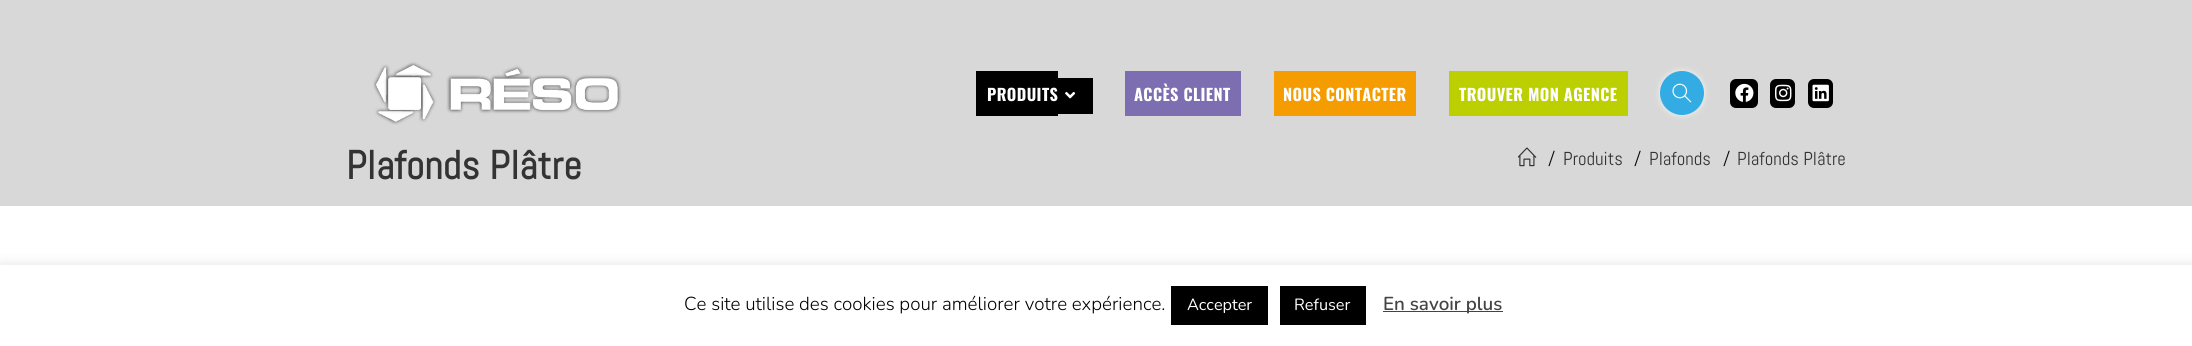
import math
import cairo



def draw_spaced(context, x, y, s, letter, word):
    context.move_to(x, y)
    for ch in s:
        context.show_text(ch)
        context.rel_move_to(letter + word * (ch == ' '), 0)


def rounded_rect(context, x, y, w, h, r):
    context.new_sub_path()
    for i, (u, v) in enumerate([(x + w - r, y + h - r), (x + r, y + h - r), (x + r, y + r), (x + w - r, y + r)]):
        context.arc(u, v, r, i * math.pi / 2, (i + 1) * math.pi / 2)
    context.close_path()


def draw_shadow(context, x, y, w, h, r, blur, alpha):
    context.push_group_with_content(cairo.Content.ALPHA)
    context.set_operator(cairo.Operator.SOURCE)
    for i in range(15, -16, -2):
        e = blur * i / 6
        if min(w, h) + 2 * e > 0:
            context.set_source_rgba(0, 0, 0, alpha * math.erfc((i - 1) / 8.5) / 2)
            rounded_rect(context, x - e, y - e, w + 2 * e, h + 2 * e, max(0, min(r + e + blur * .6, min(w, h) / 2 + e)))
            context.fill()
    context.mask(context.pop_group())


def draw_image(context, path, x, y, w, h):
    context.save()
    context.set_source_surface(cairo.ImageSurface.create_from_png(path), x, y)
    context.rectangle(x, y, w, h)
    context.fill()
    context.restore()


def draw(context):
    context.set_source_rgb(1, 1, 1)
    context.paint()
    context.set_source_rgb(216 / 255, 216 / 255, 216 / 255)
    context.rectangle(0, 0, 2192, 206)
    context.fill()
    draw_image(context, "images/1.png", 373, 62, 249, 63)
    context.set_source_rgb(0, 0, 0)
    context.rectangle(976, 71, 82, 45)
    context.fill()
    context.rectangle(1058, 78, 35, 36)
    context.fill()
    draw_image(context, "images/2.png", 1065, 91, 11, 8)
    context.set_source_rgb(124 / 255, 110 / 255, 176 / 255)
    context.rectangle(1125, 71, 116, 45)
    context.fill()
    context.set_source_rgb(245 / 255, 156 / 255, 0)
    context.rectangle(1274, 71, 142, 45)
    context.fill()
    context.set_source_rgb(188 / 255, 207 / 255, 0)
    context.rectangle(1449, 71, 179, 45)
    context.fill()
    context.set_source_rgb(245 / 255, 245 / 255, 245 / 255)
    draw_shadow(context, 1660, 71, 44, 44, 22, 3, 1)
    context.set_source_rgb(51 / 255, 172 / 255, 227 / 255)
    context.arc(1682, 93, 22, 0, 2 * math.pi)
    context.fill()
    draw_image(context, "images/3.png", 1672, 83, 20, 20)
    context.set_source_rgb(0, 0, 0)
    rounded_rect(context, 1730, 79, 28, 29, 6)
    context.fill()
    draw_image(context, "images/4.png", 1735, 83, 19, 19)
    rounded_rect(context, 1770, 79, 25, 29, 6)
    context.fill()
    draw_image(context, "images/5.png", 1775, 84, 17, 18)
    rounded_rect(context, 1808, 79, 25, 29, 6)
    context.fill()
    draw_image(context, "images/6.png", 1812, 84, 17, 18)
    draw_image(context, "images/7.png", 1518, 147, 19, 20)
    context.set_source_rgb(172 / 255, 171 / 255, 171 / 255)
    draw_shadow(context, 0, 264, 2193, 81, 0, 6, 0.3)
    context.set_source_rgb(1, 1, 1)
    context.rectangle(0, 265, 2192, 81)
    context.fill()
    context.set_source_rgb(0, 0, 0)
    context.rectangle(1171, 286, 97, 39)
    context.fill()
    context.rectangle(1280, 286, 86, 39)
    context.fill()
    context.set_source_rgb(68 / 255, 68 / 255, 68 / 255)
    context.rectangle(1383, 311, 120, 1)
    context.fill()
    context.select_font_face("Oswald", cairo.FontSlant.NORMAL, cairo.FontWeight.BOLD)
    context.set_font_size(16.25)
    context.set_source_rgb(1, 1, 1)
    draw_spaced(context, 987, 101, "PRODUITS", 0.4, 0)
    draw_spaced(context, 1134, 101, "ACCÈS CLIENT", 0.4, 0)
    draw_spaced(context, 1283, 101, "NOUS CONTACTER", 0.4, 0)
    draw_spaced(context, 1459, 101, "TROUVER MON AGENCE", 0.4, 0)
    context.select_font_face("Abel", cairo.FontSlant.NORMAL, cairo.FontWeight.BOLD)
    context.set_font_size(40)
    context.set_source_rgb(51 / 255, 51 / 255, 51 / 255)
    draw_spaced(context, 346, 179, "Plafonds Plâtre", 0.25, 0)
    context.select_font_face("Abel")
    context.set_font_size(18.75)
    context.set_source_rgb(10 / 255, 10 / 255, 10 / 255)
    context.move_to(1548, 165)
    context.show_text("/")
    context.set_source_rgb(51 / 255, 51 / 255, 51 / 255)
    context.move_to(1563, 165)
    context.show_text("Produits")
    context.set_source_rgb(10 / 255, 10 / 255, 10 / 255)
    context.move_to(1634, 165)
    context.show_text("/")
    context.set_source_rgb(51 / 255, 51 / 255, 51 / 255)
    context.move_to(1649, 165)
    context.show_text("Plafonds")
    context.set_source_rgb(10 / 255, 10 / 255, 10 / 255)
    context.move_to(1723, 165)
    context.show_text("/")
    context.set_source_rgb(51 / 255, 51 / 255, 51 / 255)
    context.move_to(1737, 165)
    context.show_text("Plafonds Plâtre")
    context.select_font_face("Nunito Light")
    context.set_source_rgb(0, 0, 0)
    context.move_to(684, 310)
    context.show_text("Ce site utilise des cookies pour améliorer votre expérience.")
    context.select_font_face("Nunito")
    context.set_font_size(16.25)
    context.set_source_rgb(1, 1, 1)
    context.move_to(1187, 310)
    context.show_text("Accepter")
    context.move_to(1294, 310)
    context.show_text("Refuser")
    context.select_font_face("Nunito SemiBold")
    context.set_font_size(18.75)
    context.set_source_rgb(68 / 255, 68 / 255, 68 / 255)
    context.move_to(1383, 310)
    context.show_text("En savoir plus")


surface = cairo.ImageSurface(cairo.Format.RGB24, 2192, 346)
context = cairo.Context(surface)
options = cairo.FontOptions()
options.set_hint_metrics(cairo.HintMetrics.OFF)
options.set_hint_style(cairo.HintStyle.NONE)
context.set_font_options(options)
context.set_miter_limit(4)
draw(context)
surface.write_to_png("out.png")
